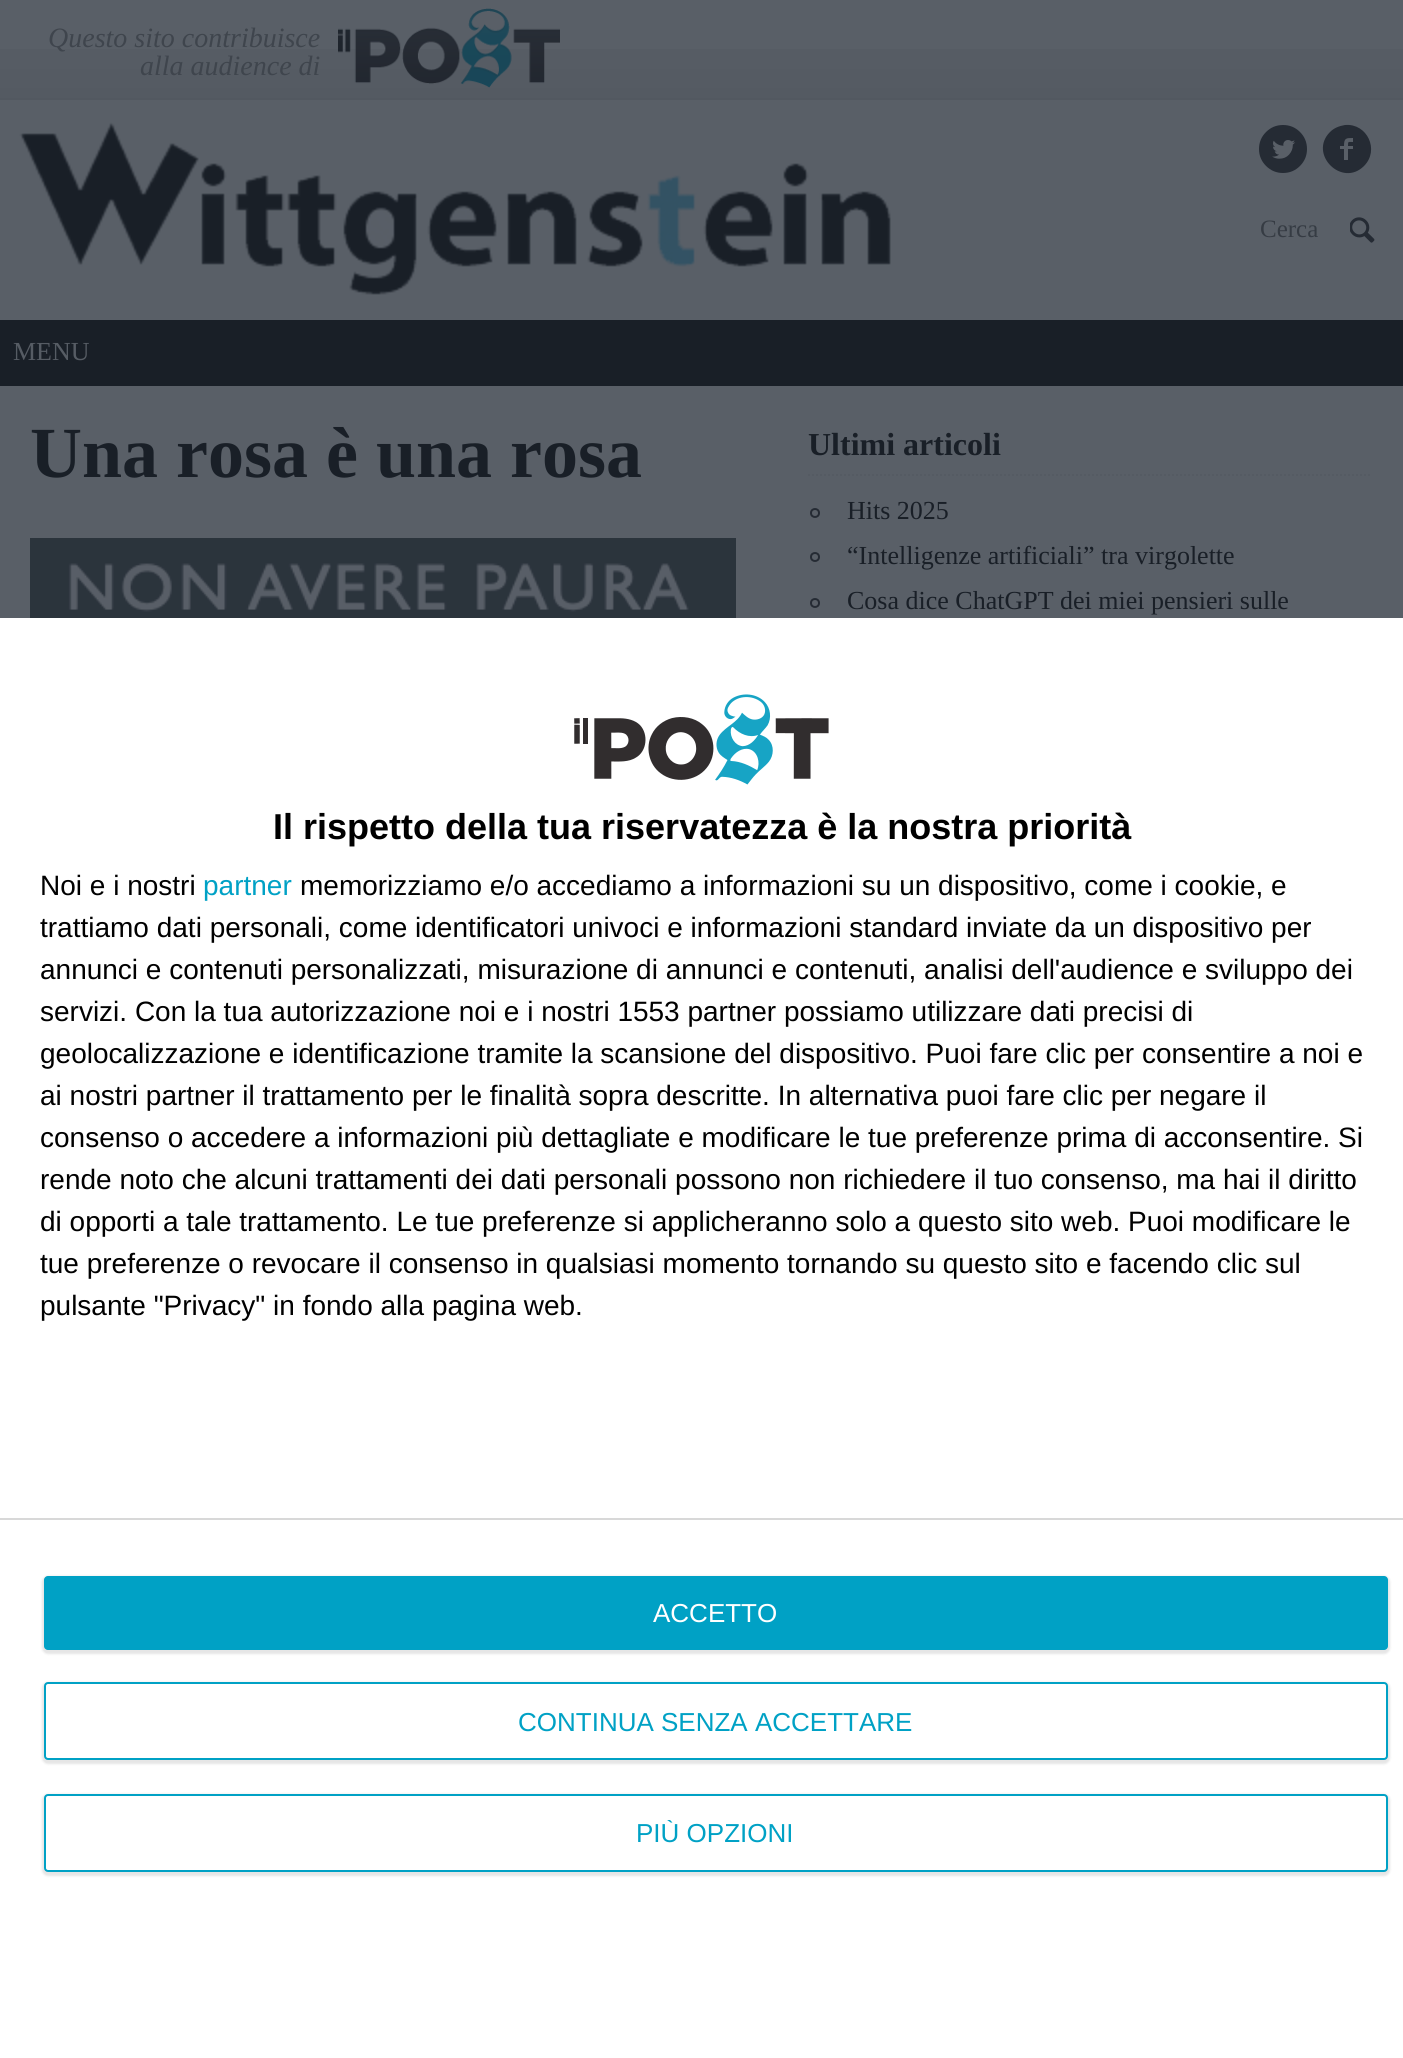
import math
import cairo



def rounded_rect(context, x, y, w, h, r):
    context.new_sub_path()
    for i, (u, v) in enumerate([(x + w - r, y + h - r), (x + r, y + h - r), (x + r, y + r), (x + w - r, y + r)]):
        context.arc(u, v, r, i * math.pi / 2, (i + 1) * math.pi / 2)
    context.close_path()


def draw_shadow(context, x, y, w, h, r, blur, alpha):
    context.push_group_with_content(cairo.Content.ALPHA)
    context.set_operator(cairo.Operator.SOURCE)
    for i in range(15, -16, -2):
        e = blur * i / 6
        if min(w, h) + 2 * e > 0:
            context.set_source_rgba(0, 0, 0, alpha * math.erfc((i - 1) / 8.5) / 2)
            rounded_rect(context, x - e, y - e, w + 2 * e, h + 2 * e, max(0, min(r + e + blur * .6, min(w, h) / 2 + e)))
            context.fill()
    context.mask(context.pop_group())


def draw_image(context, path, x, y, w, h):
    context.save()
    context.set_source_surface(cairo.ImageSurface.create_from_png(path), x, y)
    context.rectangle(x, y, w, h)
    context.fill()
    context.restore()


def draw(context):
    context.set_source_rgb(89 / 255, 95 / 255, 103 / 255)
    context.paint()
    gradient = cairo.LinearGradient(702, 0, 702, 98)
    gradient.add_color_stop_rgba(0, 89 / 255, 95 / 255, 103 / 255, 1)
    gradient.add_color_stop_rgba(1, 84 / 255, 90 / 255, 98 / 255, 1)
    context.set_source(gradient)
    context.rectangle(0, 49, 1403, 49)
    context.fill()
    context.set_source_rgb(82 / 255, 88 / 255, 96 / 255)
    context.rectangle(0, 98, 1403, 2)
    context.fill()
    draw_image(context, "images/1.png", 338, 8, 222, 80)
    draw_image(context, "images/2.png", 19, 122, 872, 173)
    draw_image(context, "images/3.png", 1259, 125, 48, 48)
    context.set_source_rgb(37 / 255, 43 / 255, 52 / 255)
    context.new_path()
    context.move_to(1330, 132)
    context.curve_to(1334, 128, 1339, 126, 1345, 125)
    context.curve_to(1367, 123, 1380, 150, 1364, 166)
    context.curve_to(1342, 188, 1308, 154, 1330, 132)
    context.close_path()
    context.move_to(1353, 142)
    context.line_to(1353, 138)
    context.curve_to(1346, 138, 1344, 138, 1344, 146)
    context.line_to(1340, 146)
    context.line_to(1340, 149)
    context.line_to(1344, 149)
    context.line_to(1344, 160)
    context.line_to(1348, 160)
    context.line_to(1348, 149)
    context.line_to(1353, 149)
    context.line_to(1353, 146)
    context.line_to(1348, 146)
    context.curve_to(1348, 141, 1348, 142, 1353, 142)
    context.close_path()
    context.fill()
    draw_image(context, "images/4.png", 1350, 217, 25, 26)
    context.set_source_rgb(25 / 255, 31 / 255, 39 / 255)
    context.rectangle(0, 320, 1403, 66)
    context.fill()
    draw_image(context, "images/5.png", 30, 538, 706, 80)
    context.new_path()
    context.move_to(808, 475)
    context.line_to(1372, 475)
    context.set_source_rgb(85 / 255, 91 / 255, 99 / 255)
    context.set_dash([2, 2])
    context.stroke()
    context.arc(815, 513, 4, 0, 2 * math.pi)
    context.set_source_rgb(37 / 255, 43 / 255, 52 / 255)
    context.set_dash([])
    context.stroke()
    context.arc(815, 557, 4, 0, 2 * math.pi)
    context.stroke()
    context.arc(815, 603, 4, 0, 2 * math.pi)
    context.stroke()
    context.set_source_rgb(1, 1, 1)
    context.rectangle(0, 618, 1403, 1440)
    context.fill()
    draw_image(context, "images/6.png", 574, 694, 255, 91)
    context.set_source_rgb(216 / 255, 216 / 255, 216 / 255)
    context.rectangle(0, 1518, 1403, 2)
    context.fill()
    context.set_source_rgb(0, 0, 0)
    draw_shadow(context, 42, 1576, 1348, 78, 6, 1, 0.1)
    context.set_source_rgb(0, 161 / 255, 197 / 255)
    rounded_rect(context, 44, 1576, 1344, 74, 4)
    context.fill()
    context.set_source_rgb(0, 0, 0)
    draw_shadow(context, 42, 1682, 1348, 82, 6, 1, 0.1)
    context.set_source_rgb(1, 1, 1)
    rounded_rect(context, 45, 1683, 1342, 76, 3)
    context.fill_preserve()
    context.set_source_rgb(0, 161 / 255, 197 / 255)
    context.stroke()
    context.set_source_rgb(0, 0, 0)
    draw_shadow(context, 42, 1794, 1348, 82, 6, 1, 0.1)
    context.set_source_rgb(1, 1, 1)
    rounded_rect(context, 45, 1795, 1342, 76, 3)
    context.fill_preserve()
    context.set_source_rgb(0, 161 / 255, 197 / 255)
    context.stroke()
    context.select_font_face("Liberation Serif", cairo.FontSlant.ITALIC)
    context.set_font_size(28)
    context.set_source_rgb(63 / 255, 69 / 255, 77 / 255)
    context.move_to(48, 47)
    context.show_text("Questo sito contribuisce")
    context.move_to(140, 75)
    context.show_text("alla audience di")
    context.select_font_face("Liberation Serif")
    context.set_font_size(25)
    context.set_source_rgb(54 / 255, 60 / 255, 68 / 255)
    context.move_to(1260, 237)
    context.show_text("Cerca")
    context.set_font_size(26)
    context.set_source_rgb(86 / 255, 92 / 255, 100 / 255)
    context.move_to(13, 360)
    context.show_text("MENU")
    context.select_font_face("Liberation Serif", cairo.FontSlant.NORMAL, cairo.FontWeight.BOLD)
    context.set_font_size(72)
    context.set_source_rgb(25 / 255, 31 / 255, 39 / 255)
    context.move_to(30, 477)
    context.show_text("Una rosa è una rosa")
    context.set_font_size(32)
    context.move_to(808, 455)
    context.show_text("Ultimi articoli")
    context.select_font_face("Liberation Serif")
    context.set_font_size(26)
    context.move_to(847, 519)
    context.show_text("Hits 2025")
    context.move_to(847, 564)
    context.show_text("“Intelligenze artificiali” tra virgolette")
    context.move_to(847, 609)
    context.show_text("Cosa dice ChatGPT dei miei pensieri sulle")
    context.select_font_face("Liberation Sans", cairo.FontSlant.NORMAL, cairo.FontWeight.BOLD)
    context.set_font_size(36)
    context.set_source_rgb(0, 0, 0)
    context.move_to(273, 839)
    context.show_text("Il rispetto della tua riservatezza è la nostra priorità")
    context.select_font_face("Liberation Sans")
    context.set_font_size(28)
    context.move_to(40, 895)
    context.show_text("Noi e i nostri")
    context.set_source_rgb(0, 161 / 255, 197 / 255)
    context.move_to(203, 895)
    context.show_text("partner")
    context.set_source_rgb(0, 0, 0)
    context.move_to(300, 895)
    context.show_text("memorizziamo e/o accediamo a informazioni su un dispositivo, come i cookie, e")
    context.move_to(40, 937)
    context.show_text("trattiamo dati personali, come identificatori univoci e informazioni standard inviate da un dispositivo per")
    context.move_to(40, 979)
    context.show_text("annunci e contenuti personalizzati, misurazione di annunci e contenuti, analisi dell'audience e sviluppo dei")
    context.move_to(40, 1021)
    context.show_text("servizi. Con la tua autorizzazione noi e i nostri 1553 partner possiamo utilizzare dati precisi di")
    context.move_to(40, 1063)
    context.show_text("geolocalizzazione e identificazione tramite la scansione del dispositivo. Puoi fare clic per consentire a noi e")
    context.move_to(40, 1105)
    context.show_text("ai nostri partner il trattamento per le finalità sopra descritte. In alternativa puoi fare clic per negare il")
    context.move_to(40, 1147)
    context.show_text("consenso o accedere a informazioni più dettagliate e modificare le tue preferenze prima di acconsentire. Si")
    context.move_to(40, 1189)
    context.show_text("rende noto che alcuni trattamenti dei dati personali possono non richiedere il tuo consenso, ma hai il diritto")
    context.move_to(40, 1231)
    context.show_text("di opporti a tale trattamento. Le tue preferenze si applicheranno solo a questo sito web. Puoi modificare le")
    context.move_to(40, 1273)
    context.show_text("tue preferenze o revocare il consenso in qualsiasi momento tornando su questo sito e facendo clic sul")
    context.move_to(40, 1315)
    context.show_text("pulsante \"Privacy\" in fondo alla pagina web.")
    context.set_font_size(26)
    context.set_source_rgb(1, 1, 1)
    context.move_to(653, 1622)
    context.show_text("ACCETTO")
    context.set_source_rgb(0, 161 / 255, 197 / 255)
    context.move_to(518, 1731)
    context.show_text("CONTINUA SENZA ACCETTARE")
    context.save()
    context.rectangle(636, 1820, 158, 26)
    context.clip()
    context.move_to(636, 1842)
    context.show_text("PIÙ OPZIONI")
    context.restore()


surface = cairo.ImageSurface(cairo.Format.RGB24, 1403, 2058)
context = cairo.Context(surface)
options = cairo.FontOptions()
options.set_hint_metrics(cairo.HintMetrics.OFF)
options.set_hint_style(cairo.HintStyle.NONE)
context.set_font_options(options)
context.set_miter_limit(4)
draw(context)
surface.write_to_png("out.png")
